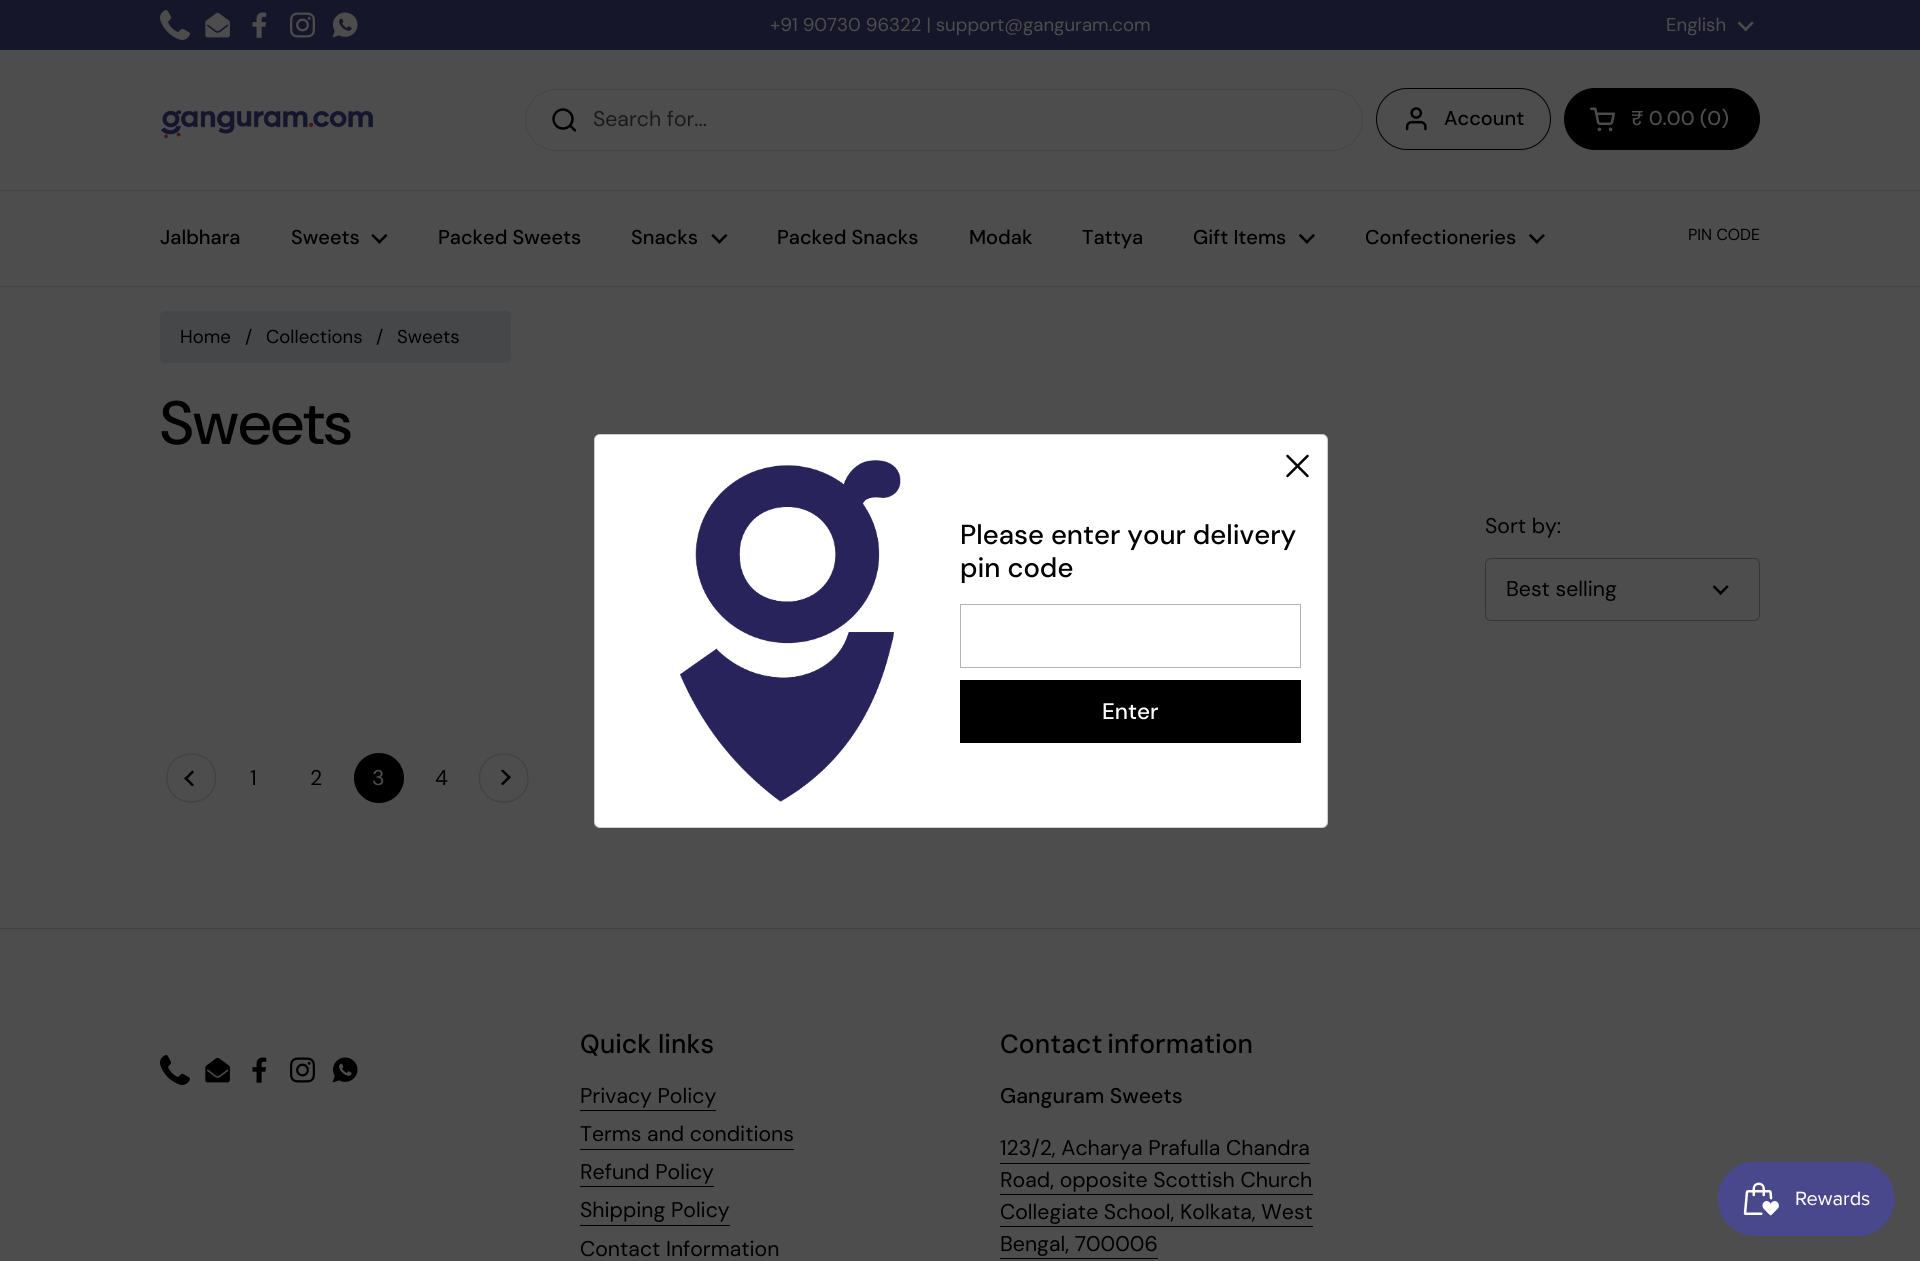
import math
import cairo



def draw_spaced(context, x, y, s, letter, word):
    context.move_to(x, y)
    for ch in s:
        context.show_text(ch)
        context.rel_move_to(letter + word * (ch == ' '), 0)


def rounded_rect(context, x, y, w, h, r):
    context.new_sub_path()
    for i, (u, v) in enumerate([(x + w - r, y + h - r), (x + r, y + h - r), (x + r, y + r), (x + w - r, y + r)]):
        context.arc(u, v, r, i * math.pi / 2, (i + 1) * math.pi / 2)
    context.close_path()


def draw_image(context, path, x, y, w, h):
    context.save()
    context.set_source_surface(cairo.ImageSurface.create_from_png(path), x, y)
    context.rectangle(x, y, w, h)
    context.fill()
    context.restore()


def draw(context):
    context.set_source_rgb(77 / 255, 77 / 255, 77 / 255)
    context.paint()
    context.set_source_rgb(22 / 255, 22 / 255, 42 / 255)
    context.rectangle(0, 0, 1920, 50)
    context.fill()
    draw_image(context, "images/1.png", 160, 10, 30, 30)
    draw_image(context, "images/2.png", 205, 12, 25, 26)
    draw_image(context, "images/3.png", 252, 12, 15, 26)
    draw_image(context, "images/4.png", 290, 12, 25, 26)
    draw_image(context, "images/5.png", 332, 12, 26, 26)
    draw_image(context, "images/6.png", 1738, 21, 16, 10)
    context.set_source_rgb(69 / 255, 69 / 255, 69 / 255)
    context.rectangle(0, 190, 1920, 1)
    context.fill()
    draw_image(context, "images/7.png", 161, 110, 212, 29)
    rounded_rect(context, 525.5, 89.5, 837, 61, 30.5)
    context.set_line_width(1)
    context.stroke()
    draw_image(context, "images/8.png", 552, 108, 25, 24)
    rounded_rect(context, 1376.5, 88.5, 174, 61, 30.5)
    context.set_source_rgb(0, 0, 0)
    context.stroke()
    draw_image(context, "images/9.png", 1405, 107, 22, 24)
    rounded_rect(context, 1564.5, 88.5, 195, 61, 30.5)
    context.fill_preserve()
    context.stroke()
    draw_image(context, "images/10.png", 1590, 107, 25, 25)
    context.set_source_rgb(69 / 255, 69 / 255, 69 / 255)
    context.rectangle(0, 286, 1920, 1)
    context.fill()
    draw_image(context, "images/11.png", 371, 234, 17, 10)
    draw_image(context, "images/11.png", 711, 234, 17, 10)
    draw_image(context, "images/12.png", 1299, 234, 16, 10)
    draw_image(context, "images/12.png", 1529, 234, 16, 10)
    context.set_source_rgb(1, 1, 1)
    rounded_rect(context, 594, 434, 734, 394, 6)
    context.fill()
    rounded_rect(context, 594.5, 434.5, 733, 393, 5.5)
    context.set_source_rgba(0, 0, 0, 0.2)
    context.stroke()
    draw_image(context, "images/13.png", 680, 460, 221, 342)
    context.new_path()
    context.move_to(1307.5, 456)
    context.line_to(1287.5, 476)
    context.move_to(1287.5, 456)
    context.line_to(1307.5, 476)
    context.set_source_rgb(0, 0, 0)
    context.set_line_width(2.5)
    context.set_line_cap(cairo.LineCap.ROUND)
    context.set_line_join(cairo.LineJoin.ROUND)
    context.stroke()
    context.rectangle(960.5, 604.5, 340, 63)
    context.set_source_rgb(179 / 255, 179 / 255, 179 / 255)
    context.set_line_width(1)
    context.set_line_cap(cairo.LineCap.BUTT)
    context.set_line_join(cairo.LineJoin.MITER)
    context.stroke()
    context.set_source_rgb(0, 0, 0)
    context.rectangle(960, 680, 341, 63)
    context.fill()
    context.set_source_rgb(70 / 255, 71 / 255, 72 / 255)
    rounded_rect(context, 160, 311, 351, 52, 5)
    context.fill()
    draw_image(context, "images/14.png", 1713, 585, 16, 10)
    rounded_rect(context, 1485.5, 558.5, 274, 62, 5.5)
    context.set_source_rgb(54 / 255, 54 / 255, 54 / 255)
    context.stroke()
    context.new_path()
    context.move_to(215.5, 778)
    context.curve_to(215.5, 810, 167, 810, 167, 778)
    context.curve_to(167, 746, 215.5, 746, 215.5, 778)
    context.close_path()
    context.set_source_rgb(65 / 255, 65 / 255, 65 / 255)
    context.set_line_width(1.2)
    context.stroke()
    draw_image(context, "images/15.png", 184, 770, 10, 16)
    context.set_source_rgb(0, 0, 0)
    context.arc(379, 778, 25, 0, 2 * math.pi)
    context.fill()
    context.arc(379, 778, 24.5, 0, 2 * math.pi)
    context.set_source_rgba(0, 0, 0, 0.15)
    context.set_line_width(1)
    context.stroke()
    context.new_path()
    context.move_to(479.5, 778)
    context.curve_to(479.5, 746, 528, 746, 528, 778)
    context.curve_to(528, 810, 479.5, 810, 479.5, 778)
    context.close_path()
    context.set_source_rgb(65 / 255, 65 / 255, 65 / 255)
    context.set_line_width(1.2)
    context.stroke()
    draw_image(context, "images/16.png", 501, 769, 10, 17)
    context.rectangle(0, 928, 1920, 1)
    context.fill()
    draw_image(context, "images/17.png", 160, 1055, 30, 30)
    draw_image(context, "images/18.png", 205, 1057, 25, 26)
    draw_image(context, "images/19.png", 252, 1057, 15, 26)
    draw_image(context, "images/20.png", 290, 1057, 25, 26)
    draw_image(context, "images/21.png", 332, 1057, 26, 26)
    context.set_source_rgb(0, 0, 0)
    context.rectangle(580, 1110, 136, 1)
    context.fill()
    context.rectangle(580, 1149, 214, 1)
    context.fill()
    context.rectangle(580, 1186, 134, 1)
    context.fill()
    context.rectangle(580, 1225, 150, 1)
    context.fill()
    context.rectangle(1000, 1163, 310, 1)
    context.fill()
    context.rectangle(1000, 1194, 313, 1)
    context.fill()
    context.rectangle(1000, 1226, 313, 1)
    context.fill()
    context.rectangle(1000, 1258, 158, 1)
    context.fill()
    draw_image(context, "images/22.png", 1718, 1161, 177, 75)
    context.select_font_face("DM Sans")
    context.set_font_size(18.6)
    context.set_source_rgb(77 / 255, 77 / 255, 77 / 255)
    context.move_to(770, 31)
    context.show_text("+91 90730 96322 | support@ganguram.com")
    context.move_to(1666, 31)
    context.show_text("English")
    context.select_font_face("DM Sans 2")
    context.set_font_size(21.25)
    context.set_source_rgb(26 / 255, 26 / 255, 26 / 255)
    context.move_to(593, 126)
    context.show_text("Search for...")
    context.select_font_face("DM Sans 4 Medium")
    context.set_font_size(20)
    context.set_source_rgb(0, 0, 0)
    context.move_to(1444, 125)
    context.show_text("Account")
    context.set_source_rgb(77 / 255, 77 / 255, 77 / 255)
    context.move_to(1631, 125)
    context.show_text("₹ 0.00 (0)")
    context.set_source_rgb(0, 0, 0)
    context.move_to(160, 244)
    context.show_text("Jalbhara")
    context.move_to(291, 244)
    context.show_text("Sweets")
    context.move_to(438, 244)
    context.show_text("Packed Sweets")
    context.move_to(631, 244)
    context.show_text("Snacks")
    context.move_to(777, 244)
    context.show_text("Packed Snacks")
    context.move_to(969, 244)
    context.show_text("Modak")
    context.move_to(1082, 244)
    context.show_text("Tattya")
    context.move_to(1193, 244)
    context.show_text("Gift Items")
    context.move_to(1365, 244)
    context.show_text("Confectioneries")
    context.select_font_face("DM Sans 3")
    context.set_font_size(16)
    context.move_to(1688, 240)
    context.show_text("PIN CODE")
    context.select_font_face("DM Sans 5 Medium")
    context.set_font_size(27.5)
    context.move_to(960, 544)
    context.show_text("Please enter your delivery")
    context.move_to(960, 577)
    context.show_text("pin code")
    context.select_font_face("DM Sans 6 Medium")
    context.set_font_size(22.5)
    context.set_source_rgb(1, 1, 1)
    context.move_to(1102, 719)
    context.show_text("Enter")
    context.select_font_face("DM Sans")
    context.set_font_size(18.6)
    context.set_source_rgb(0, 0, 0)
    context.move_to(180, 343)
    context.show_text("Home")
    context.move_to(245, 343)
    context.show_text("/")
    context.move_to(266, 343)
    context.show_text("Collections")
    context.move_to(376, 343)
    context.show_text("/")
    context.move_to(397, 343)
    context.show_text("Sweets")
    context.select_font_face("DM Sans Medium")
    context.set_font_size(61)
    context.move_to(160, 444)
    context.show_text("Sweets")
    context.select_font_face("DM Sans 2")
    context.set_font_size(21.25)
    context.move_to(1485, 533)
    context.show_text("Sort by:")
    context.move_to(1506, 596)
    context.show_text("Best selling")
    context.move_to(250, 785)
    context.show_text("1")
    context.move_to(310, 785)
    context.show_text("2")
    context.set_source_rgb(77 / 255, 77 / 255, 77 / 255)
    context.move_to(372, 785)
    context.show_text("3")
    context.set_source_rgb(0, 0, 0)
    context.move_to(435, 785)
    context.show_text("4")
    context.select_font_face("DM Sans 2 Medium")
    context.set_font_size(26.25)
    context.move_to(580, 1053)
    context.show_text("Quick links")
    context.select_font_face("DM Sans 2")
    context.set_font_size(21.25)
    context.move_to(580, 1103)
    context.show_text("Privacy Policy")
    context.move_to(580, 1141)
    context.show_text("Terms and conditions")
    context.move_to(580, 1179)
    context.show_text("Refund Policy")
    context.move_to(580, 1217)
    context.show_text("Shipping Policy")
    context.move_to(580, 1256)
    context.show_text("Contact Information")
    context.select_font_face("DM Sans 2 Medium")
    context.set_font_size(26.25)
    draw_spaced(context, 1000, 1053, "Contact information", 0, -2)
    context.select_font_face("DM Sans 3 Medium")
    context.set_font_size(21.25)
    context.move_to(1000, 1103)
    context.show_text("Ganguram Sweets")
    context.select_font_face("DM Sans 2")
    context.move_to(1000, 1155)
    context.show_text("123/2, Acharya Prafulla Chandra")
    context.move_to(1000, 1187)
    context.show_text("Road, opposite Scottish Church")
    context.move_to(1000, 1219)
    context.show_text("Collegiate School, Kolkata, West")
    context.move_to(1000, 1251)
    context.show_text("Bengal, 700006")


surface = cairo.ImageSurface(cairo.Format.RGB24, 1920, 1261)
context = cairo.Context(surface)
options = cairo.FontOptions()
options.set_hint_metrics(cairo.HintMetrics.OFF)
options.set_hint_style(cairo.HintStyle.NONE)
context.set_font_options(options)
context.set_miter_limit(4)
draw(context)
surface.write_to_png("out.png")
